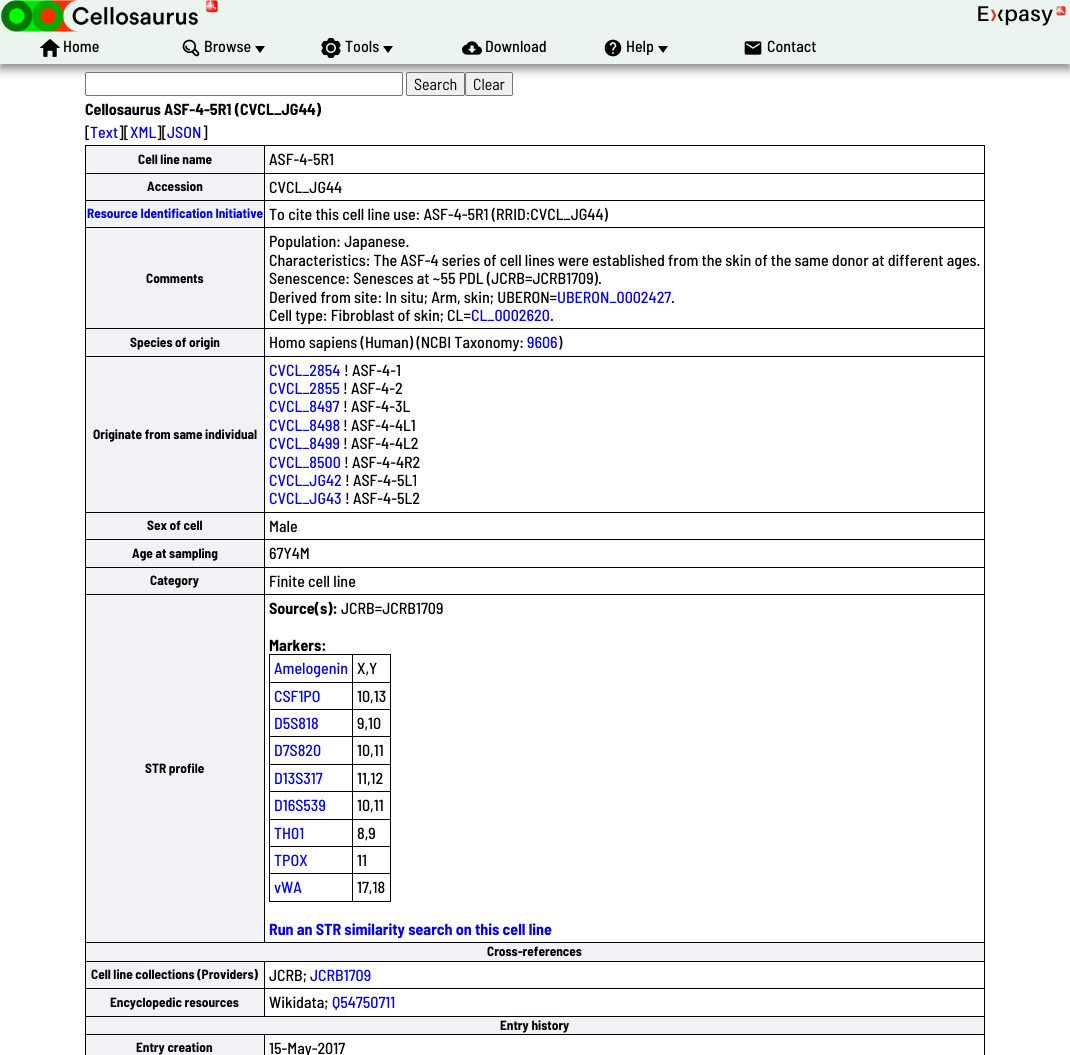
import math
import cairo



def rounded_rect(context, x, y, w, h, r):
    context.new_sub_path()
    for i, (u, v) in enumerate([(x + w - r, y + h - r), (x + r, y + h - r), (x + r, y + r), (x + w - r, y + r)]):
        context.arc(u, v, r, i * math.pi / 2, (i + 1) * math.pi / 2)
    context.close_path()


def draw_shadow(context, x, y, w, h, r, blur, alpha):
    context.push_group_with_content(cairo.Content.ALPHA)
    context.set_operator(cairo.Operator.SOURCE)
    for i in range(15, -16, -2):
        e = blur * i / 6
        if min(w, h) + 2 * e > 0:
            context.set_source_rgba(0, 0, 0, alpha * math.erfc((i - 1) / 8.5) / 2)
            rounded_rect(context, x - e, y - e, w + 2 * e, h + 2 * e, max(0, min(r + e + blur * .6, min(w, h) / 2 + e)))
            context.fill()
    context.mask(context.pop_group())


def draw_image(context, path, x, y, w, h):
    context.save()
    context.set_source_surface(cairo.ImageSurface.create_from_png(path), x, y)
    context.rectangle(x, y, w, h)
    context.fill()
    context.restore()


def draw(context):
    context.set_source_rgb(1, 1, 1)
    context.paint()
    context.set_source_rgb(136 / 255, 136 / 255, 136 / 255)
    draw_shadow(context, 0, 5, 1070, 64, 0, 5, 1)
    context.set_source_rgb(236 / 255, 244 / 255, 240 / 255)
    context.rectangle(0, 0, 1070, 64)
    context.fill()
    draw_image(context, "images/1.png", 0, 0, 219, 32)
    draw_image(context, "images/2.png", 978, 6, 88, 20)
    draw_image(context, "images/3.png", 40, 39, 20, 18)
    draw_image(context, "images/4.png", 182, 39, 18, 18)
    context.set_source_rgb(0, 0, 0)
    context.new_path()
    context.move_to(255, 46)
    context.line_to(265, 46)
    context.line_to(260, 53)
    context.close_path()
    context.fill()
    draw_image(context, "images/5.png", 321, 38, 20, 20)
    context.new_path()
    context.move_to(383, 46)
    context.line_to(393, 46)
    context.line_to(388, 53)
    context.close_path()
    context.fill()
    draw_image(context, "images/6.png", 462, 41, 20, 14)
    draw_image(context, "images/7.png", 604, 39, 18, 18)
    context.new_path()
    context.move_to(658, 46)
    context.line_to(668, 46)
    context.line_to(663, 53)
    context.close_path()
    context.fill()
    draw_image(context, "images/8.png", 744, 41, 18, 14)
    context.set_source_rgb(1, 1, 1)
    rounded_rect(context, 85.5, 72.5, 317, 23, 1.5)
    context.fill_preserve()
    context.set_source_rgb(118 / 255, 118 / 255, 118 / 255)
    context.set_line_width(1)
    context.stroke()
    context.set_source_rgb(239 / 255, 239 / 255, 239 / 255)
    rounded_rect(context, 406.5, 72.5, 58, 23, 1.5)
    context.fill_preserve()
    context.set_source_rgb(118 / 255, 118 / 255, 118 / 255)
    context.stroke()
    context.set_source_rgb(239 / 255, 239 / 255, 239 / 255)
    rounded_rect(context, 465.5, 72.5, 47, 23, 1.5)
    context.fill_preserve()
    context.set_source_rgb(118 / 255, 118 / 255, 118 / 255)
    context.stroke()
    context.set_source_rgb(0, 0, 0)
    context.rectangle(85, 145, 900, 1)
    context.fill()
    context.rectangle(984, 145, 1, 910)
    context.fill()
    context.rectangle(85, 145, 1, 910)
    context.fill()
    context.set_source_rgb(240 / 255, 242 / 255, 245 / 255)
    context.rectangle(86, 146, 178, 27)
    context.fill()
    context.set_source_rgb(0, 0, 0)
    context.rectangle(85, 173, 900, 1)
    context.fill()
    context.set_source_rgb(240 / 255, 242 / 255, 245 / 255)
    context.rectangle(86, 174, 178, 26)
    context.fill()
    context.set_source_rgb(0, 0, 0)
    context.rectangle(85, 200, 900, 1)
    context.fill()
    context.set_source_rgb(240 / 255, 242 / 255, 245 / 255)
    context.rectangle(86, 201, 178, 26)
    context.fill()
    context.set_source_rgb(0, 0, 0)
    context.rectangle(85, 227, 900, 1)
    context.fill()
    context.set_source_rgb(240 / 255, 242 / 255, 245 / 255)
    context.rectangle(86, 228, 178, 100)
    context.fill()
    context.set_source_rgb(0, 0, 0)
    context.rectangle(85, 328, 900, 1)
    context.fill()
    context.set_source_rgb(240 / 255, 242 / 255, 245 / 255)
    context.rectangle(86, 329, 178, 27)
    context.fill()
    context.set_source_rgb(0, 0, 0)
    context.rectangle(85, 356, 900, 1)
    context.fill()
    context.set_source_rgb(240 / 255, 242 / 255, 245 / 255)
    context.rectangle(86, 357, 178, 155)
    context.fill()
    context.set_source_rgb(0, 0, 0)
    context.rectangle(85, 512, 900, 1)
    context.fill()
    context.set_source_rgb(240 / 255, 242 / 255, 245 / 255)
    context.rectangle(86, 513, 178, 26)
    context.fill()
    context.set_source_rgb(0, 0, 0)
    context.rectangle(85, 539, 900, 1)
    context.fill()
    context.set_source_rgb(240 / 255, 242 / 255, 245 / 255)
    context.rectangle(86, 540, 178, 27)
    context.fill()
    context.set_source_rgb(0, 0, 0)
    context.rectangle(85, 567, 900, 1)
    context.fill()
    context.set_source_rgb(240 / 255, 242 / 255, 245 / 255)
    context.rectangle(86, 568, 178, 26)
    context.fill()
    context.set_source_rgb(0, 0, 0)
    context.rectangle(85, 594, 900, 1)
    context.fill()
    context.set_source_rgb(240 / 255, 242 / 255, 245 / 255)
    context.rectangle(86, 595, 178, 347)
    context.fill()
    context.set_source_rgb(0, 0, 0)
    context.rectangle(85, 942, 900, 1)
    context.fill()
    context.rectangle(264, 145, 1, 798)
    context.fill()
    context.rectangle(269, 654, 122, 1)
    context.fill()
    context.rectangle(390, 654, 1, 248)
    context.fill()
    context.rectangle(269, 901, 122, 1)
    context.fill()
    context.rectangle(269, 654, 1, 248)
    context.fill()
    context.rectangle(269, 682, 122, 1)
    context.fill()
    context.rectangle(269, 709, 122, 1)
    context.fill()
    context.rectangle(269, 736, 122, 1)
    context.fill()
    context.rectangle(269, 764, 122, 1)
    context.fill()
    context.rectangle(269, 791, 122, 1)
    context.fill()
    context.rectangle(269, 819, 122, 1)
    context.fill()
    context.rectangle(269, 846, 122, 1)
    context.fill()
    context.rectangle(269, 873, 122, 1)
    context.fill()
    context.rectangle(352, 654, 1, 248)
    context.fill()
    context.set_source_rgb(240 / 255, 242 / 255, 245 / 255)
    context.rectangle(86, 943, 898, 18)
    context.fill()
    context.set_source_rgb(0, 0, 0)
    context.rectangle(85, 961, 900, 1)
    context.fill()
    context.set_source_rgb(240 / 255, 242 / 255, 245 / 255)
    context.rectangle(86, 962, 178, 26)
    context.fill()
    context.set_source_rgb(0, 0, 0)
    context.rectangle(85, 988, 900, 1)
    context.fill()
    context.set_source_rgb(240 / 255, 242 / 255, 245 / 255)
    context.rectangle(86, 989, 178, 27)
    context.fill()
    context.set_source_rgb(0, 0, 0)
    context.rectangle(85, 1016, 900, 1)
    context.fill()
    context.rectangle(264, 961, 1, 56)
    context.fill()
    context.set_source_rgb(240 / 255, 242 / 255, 245 / 255)
    context.rectangle(86, 1017, 898, 17)
    context.fill()
    context.set_source_rgb(0, 0, 0)
    context.rectangle(85, 1034, 900, 1)
    context.fill()
    context.set_source_rgb(240 / 255, 242 / 255, 245 / 255)
    context.rectangle(86, 1035, 178, 20)
    context.fill()
    context.set_source_rgb(0, 0, 0)
    context.rectangle(264, 1034, 1, 21)
    context.fill()
    context.select_font_face("Barlow Semi Condensed Medium")
    context.set_font_size(16)
    context.move_to(63, 52)
    context.show_text("Home")
    context.move_to(204, 52)
    context.show_text("Browse")
    context.move_to(345, 52)
    context.show_text("Tools")
    context.move_to(485, 52)
    context.show_text("Download")
    context.move_to(626, 52)
    context.show_text("Help")
    context.move_to(767, 52)
    context.show_text("Contact")
    context.select_font_face("Barlow Semi Condensed")
    context.move_to(414, 90)
    context.show_text("Search")
    context.move_to(473, 90)
    context.show_text("Clear")
    context.select_font_face("Barlow Semi Condensed", cairo.FontSlant.NORMAL, cairo.FontWeight.BOLD)
    context.move_to(85, 115)
    context.show_text("Cellosaurus ASF-4-5R1 (CVCL_JG44)")
    context.select_font_face("Barlow Semi Condensed Medium")
    context.move_to(85, 138)
    context.show_text("[")
    context.set_source_rgb(0, 0, 238 / 255)
    context.move_to(90, 138)
    context.show_text("Text")
    context.set_source_rgb(0, 0, 0)
    context.move_to(118, 138)
    context.show_text("][")
    context.set_source_rgb(0, 0, 238 / 255)
    context.move_to(130, 138)
    context.show_text("XML")
    context.set_source_rgb(0, 0, 0)
    context.move_to(156, 138)
    context.show_text("][")
    context.set_source_rgb(0, 0, 238 / 255)
    context.move_to(167, 138)
    context.show_text("JSON")
    context.set_source_rgb(0, 0, 0)
    context.move_to(202, 138)
    context.show_text("]")
    context.select_font_face("Barlow Semi Condensed", cairo.FontSlant.NORMAL, cairo.FontWeight.BOLD)
    context.set_font_size(13.3)
    context.move_to(138, 164)
    context.show_text("Cell line name")
    context.select_font_face("Barlow Semi Condensed Medium")
    context.set_font_size(16)
    context.move_to(269, 165)
    context.show_text("ASF-4-5R1")
    context.select_font_face("Barlow Semi Condensed", cairo.FontSlant.NORMAL, cairo.FontWeight.BOLD)
    context.set_font_size(13.3)
    context.move_to(147, 191)
    context.show_text("Accession")
    context.select_font_face("Barlow Semi Condensed Medium")
    context.set_font_size(16)
    context.move_to(269, 193)
    context.show_text("CVCL_JG44")
    context.select_font_face("Barlow Semi Condensed", cairo.FontSlant.NORMAL, cairo.FontWeight.BOLD)
    context.set_font_size(13.3)
    context.set_source_rgb(0, 0, 238 / 255)
    context.move_to(87, 218)
    context.show_text("Resource Identification Initiative")
    context.select_font_face("Barlow Semi Condensed Medium")
    context.set_font_size(16)
    context.set_source_rgb(0, 0, 0)
    context.move_to(269, 220)
    context.show_text("To cite this cell line use: ASF-4-5R1 (RRID:CVCL_JG44)")
    context.select_font_face("Barlow Semi Condensed", cairo.FontSlant.NORMAL, cairo.FontWeight.BOLD)
    context.set_font_size(13.3)
    context.move_to(146, 283)
    context.show_text("Comments")
    context.select_font_face("Barlow Semi Condensed Medium")
    context.set_font_size(16)
    context.move_to(269, 247)
    context.show_text("Population: Japanese.")
    context.move_to(269, 266)
    context.show_text("Characteristics: The ASF-4 series of cell lines were established from the skin of the same donor at different ages.")
    context.move_to(269, 284)
    context.show_text("Senescence: Senesces at ~55 PDL (JCRB=JCRB1709).")
    context.move_to(269, 303)
    context.show_text("Derived from site: In situ; Arm, skin; UBERON=")
    context.set_source_rgb(0, 0, 238 / 255)
    context.move_to(557, 303)
    context.show_text("UBERON_0002427")
    context.set_source_rgb(0, 0, 0)
    context.move_to(671, 303)
    context.show_text(".")
    context.move_to(269, 321)
    context.show_text("Cell type: Fibroblast of skin; CL=")
    context.set_source_rgb(0, 0, 238 / 255)
    context.move_to(471, 321)
    context.show_text("CL_0002620")
    context.set_source_rgb(0, 0, 0)
    context.move_to(550, 321)
    context.show_text(".")
    context.select_font_face("Barlow Semi Condensed", cairo.FontSlant.NORMAL, cairo.FontWeight.BOLD)
    context.set_font_size(13.3)
    context.move_to(130, 347)
    context.show_text("Species of origin")
    context.select_font_face("Barlow Semi Condensed Medium")
    context.set_font_size(16)
    context.move_to(269, 348)
    context.show_text("Homo sapiens (Human) (NCBI Taxonomy:")
    context.set_source_rgb(0, 0, 238 / 255)
    context.move_to(527, 348)
    context.show_text("9606")
    context.set_source_rgb(0, 0, 0)
    context.move_to(558, 348)
    context.show_text(")")
    context.select_font_face("Barlow Semi Condensed", cairo.FontSlant.NORMAL, cairo.FontWeight.BOLD)
    context.set_font_size(13.3)
    context.move_to(93, 439)
    context.show_text("Originate from same individual")
    context.select_font_face("Barlow Semi Condensed Medium")
    context.set_font_size(16)
    context.set_source_rgb(0, 0, 238 / 255)
    context.move_to(269, 376)
    context.show_text("CVCL_2854")
    context.set_source_rgb(0, 0, 0)
    context.move_to(344, 376)
    context.show_text("! ASF-4-1")
    context.set_source_rgb(0, 0, 238 / 255)
    context.move_to(269, 394)
    context.show_text("CVCL_2855")
    context.set_source_rgb(0, 0, 0)
    context.move_to(343, 394)
    context.show_text("! ASF-4-2")
    context.set_source_rgb(0, 0, 238 / 255)
    context.move_to(269, 412)
    context.show_text("CVCL_8497")
    context.set_source_rgb(0, 0, 0)
    context.move_to(343, 412)
    context.show_text("! ASF-4-3L")
    context.set_source_rgb(0, 0, 238 / 255)
    context.move_to(269, 431)
    context.show_text("CVCL_8498")
    context.set_source_rgb(0, 0, 0)
    context.move_to(343, 431)
    context.show_text("! ASF-4-4L1")
    context.set_source_rgb(0, 0, 238 / 255)
    context.move_to(269, 449)
    context.show_text("CVCL_8499")
    context.set_source_rgb(0, 0, 0)
    context.move_to(343, 449)
    context.show_text("! ASF-4-4L2")
    context.set_source_rgb(0, 0, 238 / 255)
    context.move_to(269, 468)
    context.show_text("CVCL_8500")
    context.set_source_rgb(0, 0, 0)
    context.move_to(344, 468)
    context.show_text("! ASF-4-4R2")
    context.set_source_rgb(0, 0, 238 / 255)
    context.move_to(269, 486)
    context.show_text("CVCL_JG42")
    context.set_source_rgb(0, 0, 0)
    context.move_to(345, 486)
    context.show_text("! ASF-4-5L1")
    context.set_source_rgb(0, 0, 238 / 255)
    context.move_to(269, 504)
    context.show_text("CVCL_JG43")
    context.set_source_rgb(0, 0, 0)
    context.move_to(345, 504)
    context.show_text("! ASF-4-5L2")
    context.select_font_face("Barlow Semi Condensed", cairo.FontSlant.NORMAL, cairo.FontWeight.BOLD)
    context.set_font_size(13.3)
    context.move_to(147, 530)
    context.show_text("Sex of cell")
    context.select_font_face("Barlow Semi Condensed Medium")
    context.set_font_size(16)
    context.move_to(269, 532)
    context.show_text("Male")
    context.select_font_face("Barlow Semi Condensed", cairo.FontSlant.NORMAL, cairo.FontWeight.BOLD)
    context.set_font_size(13.3)
    context.move_to(132, 558)
    context.show_text("Age at sampling")
    context.select_font_face("Barlow Semi Condensed Medium")
    context.set_font_size(16)
    context.move_to(269, 559)
    context.show_text("67Y4M")
    context.select_font_face("Barlow Semi Condensed", cairo.FontSlant.NORMAL, cairo.FontWeight.BOLD)
    context.set_font_size(13.3)
    context.move_to(150, 585)
    context.show_text("Category")
    context.select_font_face("Barlow Semi Condensed Medium")
    context.set_font_size(16)
    context.move_to(269, 587)
    context.show_text("Finite cell line")
    context.select_font_face("Barlow Semi Condensed", cairo.FontSlant.NORMAL, cairo.FontWeight.BOLD)
    context.set_font_size(13.3)
    context.move_to(145, 773)
    context.show_text("STR profile")
    context.set_font_size(16)
    context.move_to(269, 614)
    context.show_text("Source(s):")
    context.select_font_face("Barlow Semi Condensed Medium")
    context.move_to(341, 614)
    context.show_text("JCRB=JCRB1709")
    context.select_font_face("Barlow Semi Condensed", cairo.FontSlant.NORMAL, cairo.FontWeight.BOLD)
    context.move_to(269, 651)
    context.show_text("Markers:")
    context.select_font_face("Barlow Semi Condensed Medium")
    context.set_source_rgb(0, 0, 238 / 255)
    context.move_to(274, 674)
    context.show_text("Amelogenin")
    context.set_source_rgb(0, 0, 0)
    context.move_to(357, 674)
    context.show_text("X,Y")
    context.set_source_rgb(0, 0, 238 / 255)
    context.move_to(274, 702)
    context.show_text("CSF1PO")
    context.set_source_rgb(0, 0, 0)
    context.move_to(357, 702)
    context.show_text("10,13")
    context.set_source_rgb(0, 0, 238 / 255)
    context.move_to(274, 729)
    context.show_text("D5S818")
    context.set_source_rgb(0, 0, 0)
    context.move_to(357, 729)
    context.show_text("9,10")
    context.set_source_rgb(0, 0, 238 / 255)
    context.move_to(274, 756)
    context.show_text("D7S820")
    context.set_source_rgb(0, 0, 0)
    context.move_to(357, 756)
    context.show_text("10,11")
    context.set_source_rgb(0, 0, 238 / 255)
    context.move_to(274, 784)
    context.show_text("D13S317")
    context.set_source_rgb(0, 0, 0)
    context.move_to(357, 784)
    context.show_text("11,12")
    context.set_source_rgb(0, 0, 238 / 255)
    context.move_to(274, 811)
    context.show_text("D16S539")
    context.set_source_rgb(0, 0, 0)
    context.move_to(357, 811)
    context.show_text("10,11")
    context.set_source_rgb(0, 0, 238 / 255)
    context.move_to(274, 839)
    context.show_text("TH01")
    context.set_source_rgb(0, 0, 0)
    context.move_to(357, 839)
    context.show_text("8,9")
    context.set_source_rgb(0, 0, 238 / 255)
    context.move_to(274, 866)
    context.show_text("TPOX")
    context.set_source_rgb(0, 0, 0)
    context.move_to(357, 866)
    context.show_text("11")
    context.set_source_rgb(0, 0, 238 / 255)
    context.move_to(274, 893)
    context.show_text("vWA")
    context.set_source_rgb(0, 0, 0)
    context.move_to(357, 893)
    context.show_text("17,18")
    context.select_font_face("Barlow Semi Condensed", cairo.FontSlant.NORMAL, cairo.FontWeight.BOLD)
    context.set_source_rgb(0, 0, 238 / 255)
    context.move_to(269, 935)
    context.show_text("Run an STR similarity search on this cell line")
    context.set_font_size(13.3)
    context.set_source_rgb(0, 0, 0)
    context.move_to(487, 956)
    context.show_text("Cross-references")
    context.move_to(91, 979)
    context.show_text("Cell line collections (Providers)")
    context.select_font_face("Barlow Semi Condensed Medium")
    context.set_font_size(16)
    context.move_to(269, 981)
    context.show_text("JCRB;")
    context.set_source_rgb(0, 0, 238 / 255)
    context.move_to(310, 981)
    context.show_text("JCRB1709")
    context.select_font_face("Barlow Semi Condensed", cairo.FontSlant.NORMAL, cairo.FontWeight.BOLD)
    context.set_font_size(13.3)
    context.set_source_rgb(0, 0, 0)
    context.move_to(110, 1007)
    context.show_text("Encyclopedic resources")
    context.select_font_face("Barlow Semi Condensed Medium")
    context.set_font_size(16)
    context.move_to(269, 1008)
    context.show_text("Wikidata;")
    context.set_source_rgb(0, 0, 238 / 255)
    context.move_to(332, 1008)
    context.show_text("Q54750711")
    context.select_font_face("Barlow Semi Condensed", cairo.FontSlant.NORMAL, cairo.FontWeight.BOLD)
    context.set_font_size(13.3)
    context.set_source_rgb(0, 0, 0)
    context.move_to(500, 1030)
    context.show_text("Entry history")
    context.move_to(136, 1052)
    context.show_text("Entry creation")
    context.select_font_face("Barlow Semi Condensed Medium")
    context.set_font_size(16)
    context.move_to(269, 1054)
    context.show_text("15-May-2017")


surface = cairo.ImageSurface(cairo.Format.RGB24, 1070, 1055)
context = cairo.Context(surface)
options = cairo.FontOptions()
options.set_hint_metrics(cairo.HintMetrics.OFF)
options.set_hint_style(cairo.HintStyle.NONE)
context.set_font_options(options)
context.set_miter_limit(4)
draw(context)
surface.write_to_png("out.png")
